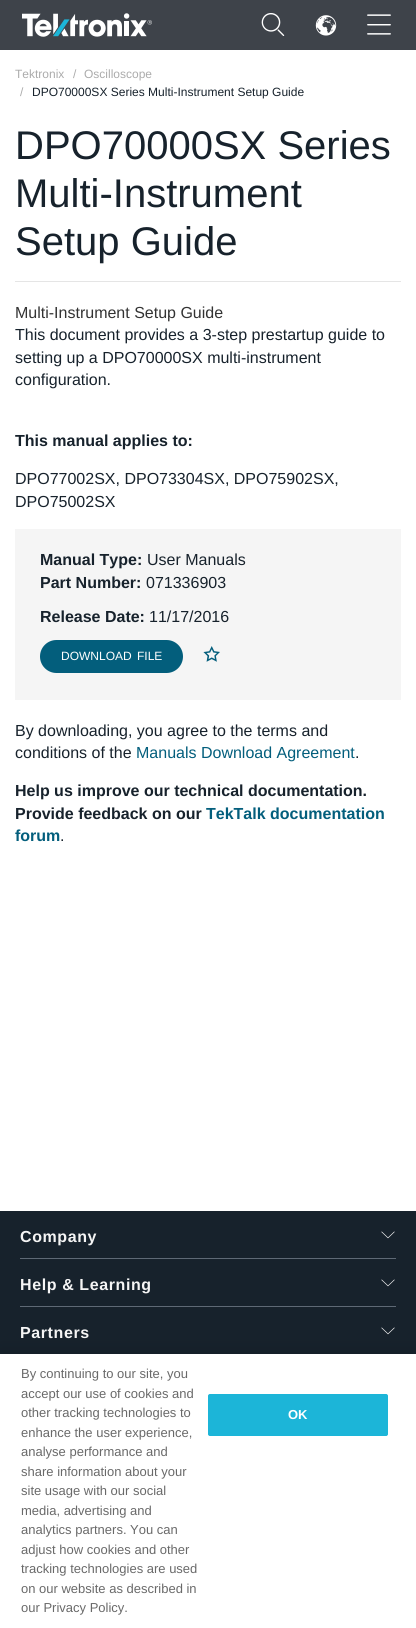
import math
import cairo



def draw_spaced(context, x, y, s, letter, word):
    context.move_to(x, y)
    for ch in s:
        context.show_text(ch)
        context.rel_move_to(letter + word * (ch == ' '), 0)


def rounded_rect(context, x, y, w, h, r):
    context.new_sub_path()
    for i, (u, v) in enumerate([(x + w - r, y + h - r), (x + r, y + h - r), (x + r, y + r), (x + w - r, y + r)]):
        context.arc(u, v, r, i * math.pi / 2, (i + 1) * math.pi / 2)
    context.close_path()


def draw_shadow(context, x, y, w, h, r, blur, alpha):
    context.push_group_with_content(cairo.Content.ALPHA)
    context.set_operator(cairo.Operator.SOURCE)
    for i in range(15, -16, -2):
        e = blur * i / 6
        if min(w, h) + 2 * e > 0:
            context.set_source_rgba(0, 0, 0, alpha * math.erfc((i - 1) / 8.5) / 2)
            rounded_rect(context, x - e, y - e, w + 2 * e, h + 2 * e, max(0, min(r + e + blur * .6, min(w, h) / 2 + e)))
            context.fill()
    context.mask(context.pop_group())


def draw_image(context, path, x, y, w, h):
    context.save()
    context.set_source_surface(cairo.ImageSurface.create_from_png(path), x, y)
    context.rectangle(x, y, w, h)
    context.fill()
    context.restore()


def draw(context):
    context.set_source_rgb(1, 1, 1)
    context.paint()
    context.set_source_rgb(62 / 255, 67 / 255, 74 / 255)
    context.rectangle(0, 0, 416, 50)
    context.fill()
    draw_image(context, "images/1.png", 22, 13, 130, 24)
    draw_image(context, "images/2.png", 261, 13, 24, 23)
    draw_image(context, "images/3.png", 315, 15, 22, 21)
    draw_image(context, "images/4.png", 367, 14, 24, 21)
    context.set_source_rgb(229 / 255, 229 / 255, 229 / 255)
    context.rectangle(15, 281, 386, 1)
    context.fill()
    context.set_source_rgb(245 / 255, 245 / 255, 245 / 255)
    context.rectangle(15, 529, 386, 171)
    context.fill()
    context.set_source_rgb(3 / 255, 94 / 255, 124 / 255)
    rounded_rect(context, 40, 640, 143, 33, 16.5)
    context.fill()
    draw_image(context, "images/5.png", 203, 646, 17, 16)
    context.set_source_rgb(23 / 255, 34 / 255, 44 / 255)
    context.rectangle(0, 1211, 416, 143)
    context.fill()
    draw_image(context, "images/6.png", 381, 1231, 14, 8)
    context.set_source_rgb(94 / 255, 105 / 255, 117 / 255)
    context.rectangle(20, 1258, 376, 1)
    context.fill()
    draw_image(context, "images/6.png", 381, 1279, 14, 8)
    context.rectangle(20, 1306, 376, 1)
    context.fill()
    draw_image(context, "images/6.png", 381, 1327, 14, 8)
    context.set_source_rgb(0, 0, 0)
    draw_shadow(context, 0, 1354, 416, 274, 0, 9, 0.2)
    context.set_source_rgb(1, 1, 1)
    context.rectangle(0, 1354, 416, 274)
    context.fill()
    context.set_source_rgb(28 / 255, 181 / 255, 216 / 255)
    rounded_rect(context, 208.5, 1394.5, 179, 41, 1.5)
    context.fill_preserve()
    context.set_line_width(1)
    context.stroke()
    context.select_font_face("Liberation Sans")
    context.set_font_size(12)
    context.set_source_rgb(171 / 255, 171 / 255, 171 / 255)
    context.move_to(15, 78)
    context.show_text("Tektronix")
    context.move_to(73, 78)
    context.show_text("/")
    context.move_to(84, 78)
    context.show_text("Oscilloscope")
    context.move_to(20, 96)
    context.show_text("/")
    context.set_source_rgb(23 / 255, 34 / 255, 44 / 255)
    context.move_to(32, 96)
    context.show_text("DPO70000SX Series Multi-Instrument Setup Guide")
    context.set_font_size(40)
    context.move_to(15, 159)
    context.show_text("DPO70000SX Series")
    context.move_to(15, 207)
    context.show_text("Multi-Instrument")
    context.move_to(15, 255)
    context.show_text("Setup Guide")
    context.set_font_size(16)
    context.set_source_rgb(51 / 255, 51 / 255, 51 / 255)
    context.move_to(15, 318)
    context.show_text("Multi-Instrument Setup Guide")
    context.set_source_rgb(23 / 255, 34 / 255, 44 / 255)
    context.move_to(15, 340)
    context.show_text("This document provides a 3-step prestartup guide to")
    context.move_to(15, 363)
    context.show_text("setting up a DPO70000SX multi-instrument")
    context.move_to(15, 385)
    context.show_text("configuration.")
    context.select_font_face("Liberation Sans", cairo.FontSlant.NORMAL, cairo.FontWeight.BOLD)
    context.move_to(15, 446)
    context.show_text("This manual applies to:")
    context.select_font_face("Liberation Sans")
    context.move_to(15, 484)
    context.show_text("DPO77002SX, DPO73304SX, DPO75902SX,")
    context.move_to(15, 507)
    context.show_text("DPO75002SX")
    context.select_font_face("Liberation Sans", cairo.FontSlant.NORMAL, cairo.FontWeight.BOLD)
    context.move_to(40, 565)
    context.show_text("Manual Type:")
    context.select_font_face("Liberation Sans")
    context.move_to(147, 565)
    context.show_text("User Manuals")
    context.select_font_face("Liberation Sans", cairo.FontSlant.NORMAL, cairo.FontWeight.BOLD)
    context.move_to(40, 588)
    context.show_text("Part Number:")
    context.select_font_face("Liberation Sans")
    context.move_to(146, 588)
    context.show_text("071336903")
    context.select_font_face("Liberation Sans", cairo.FontSlant.NORMAL, cairo.FontWeight.BOLD)
    context.move_to(40, 622)
    context.show_text("Release Date:")
    context.select_font_face("Liberation Sans")
    context.move_to(149, 622)
    context.show_text("11/17/2016")
    context.set_font_size(12)
    context.set_source_rgb(1, 1, 1)
    draw_spaced(context, 61, 660, "DOWNLOAD FILE", 0, 2)
    context.set_font_size(16)
    context.set_source_rgb(23 / 255, 34 / 255, 44 / 255)
    context.move_to(15, 736)
    context.show_text("By downloading, you agree to the terms and")
    context.move_to(15, 758)
    context.show_text("conditions of the")
    context.set_source_rgb(3 / 255, 94 / 255, 124 / 255)
    context.move_to(136, 758)
    context.show_text("Manuals Download Agreement")
    context.set_source_rgb(23 / 255, 34 / 255, 44 / 255)
    context.move_to(355, 758)
    context.show_text(".")
    context.select_font_face("Liberation Sans", cairo.FontSlant.NORMAL, cairo.FontWeight.BOLD)
    context.move_to(15, 796)
    context.show_text("Help us improve our technical documentation.")
    context.move_to(15, 819)
    context.show_text("Provide feedback on our")
    context.set_source_rgb(3 / 255, 94 / 255, 124 / 255)
    context.move_to(206, 819)
    context.show_text("TekTalk documentation")
    context.move_to(15, 841)
    context.show_text("forum")
    context.select_font_face("Liberation Sans")
    context.set_source_rgb(23 / 255, 34 / 255, 44 / 255)
    context.move_to(60, 841)
    context.show_text(".")
    context.select_font_face("Liberation Sans", cairo.FontSlant.NORMAL, cairo.FontWeight.BOLD)
    context.set_source_rgb(245 / 255, 245 / 255, 245 / 255)
    draw_spaced(context, 20, 1242, "Company", 0.6, 0)
    draw_spaced(context, 20, 1290, "Help & Learning", 0.6, 0)
    draw_spaced(context, 20, 1338, "Partners", 0.6, 0)
    context.select_font_face("Liberation Sans")
    context.set_font_size(13)
    context.set_source_rgb(105 / 255, 105 / 255, 105 / 255)
    context.move_to(21, 1378)
    context.show_text("By continuing to our site, you")
    context.move_to(21, 1398)
    context.show_text("accept our use of cookies and")
    context.move_to(21, 1417)
    context.show_text("other tracking technologies to")
    context.move_to(21, 1437)
    context.show_text("enhance the user experience,")
    context.move_to(21, 1456)
    context.show_text("analyse performance and")
    context.move_to(21, 1476)
    context.show_text("share information about your")
    context.move_to(21, 1495)
    context.show_text("site usage with our social")
    context.move_to(21, 1515)
    context.show_text("media, advertising and")
    context.move_to(21, 1534)
    context.show_text("analytics partners. You can")
    context.move_to(21, 1554)
    context.show_text("adjust how cookies and other")
    context.move_to(21, 1573)
    context.show_text("tracking technologies are used")
    context.move_to(21, 1593)
    context.show_text("on our website as described in")
    context.move_to(21, 1612)
    context.show_text("our Privacy Policy.")
    context.select_font_face("Liberation Sans", cairo.FontSlant.NORMAL, cairo.FontWeight.BOLD)
    context.set_source_rgb(1, 1, 1)
    context.move_to(288, 1419)
    context.show_text("OK")


surface = cairo.ImageSurface(cairo.Format.RGB24, 416, 1628)
context = cairo.Context(surface)
options = cairo.FontOptions()
options.set_hint_metrics(cairo.HintMetrics.OFF)
options.set_hint_style(cairo.HintStyle.NONE)
context.set_font_options(options)
context.set_miter_limit(4)
draw(context)
surface.write_to_png("out.png")
